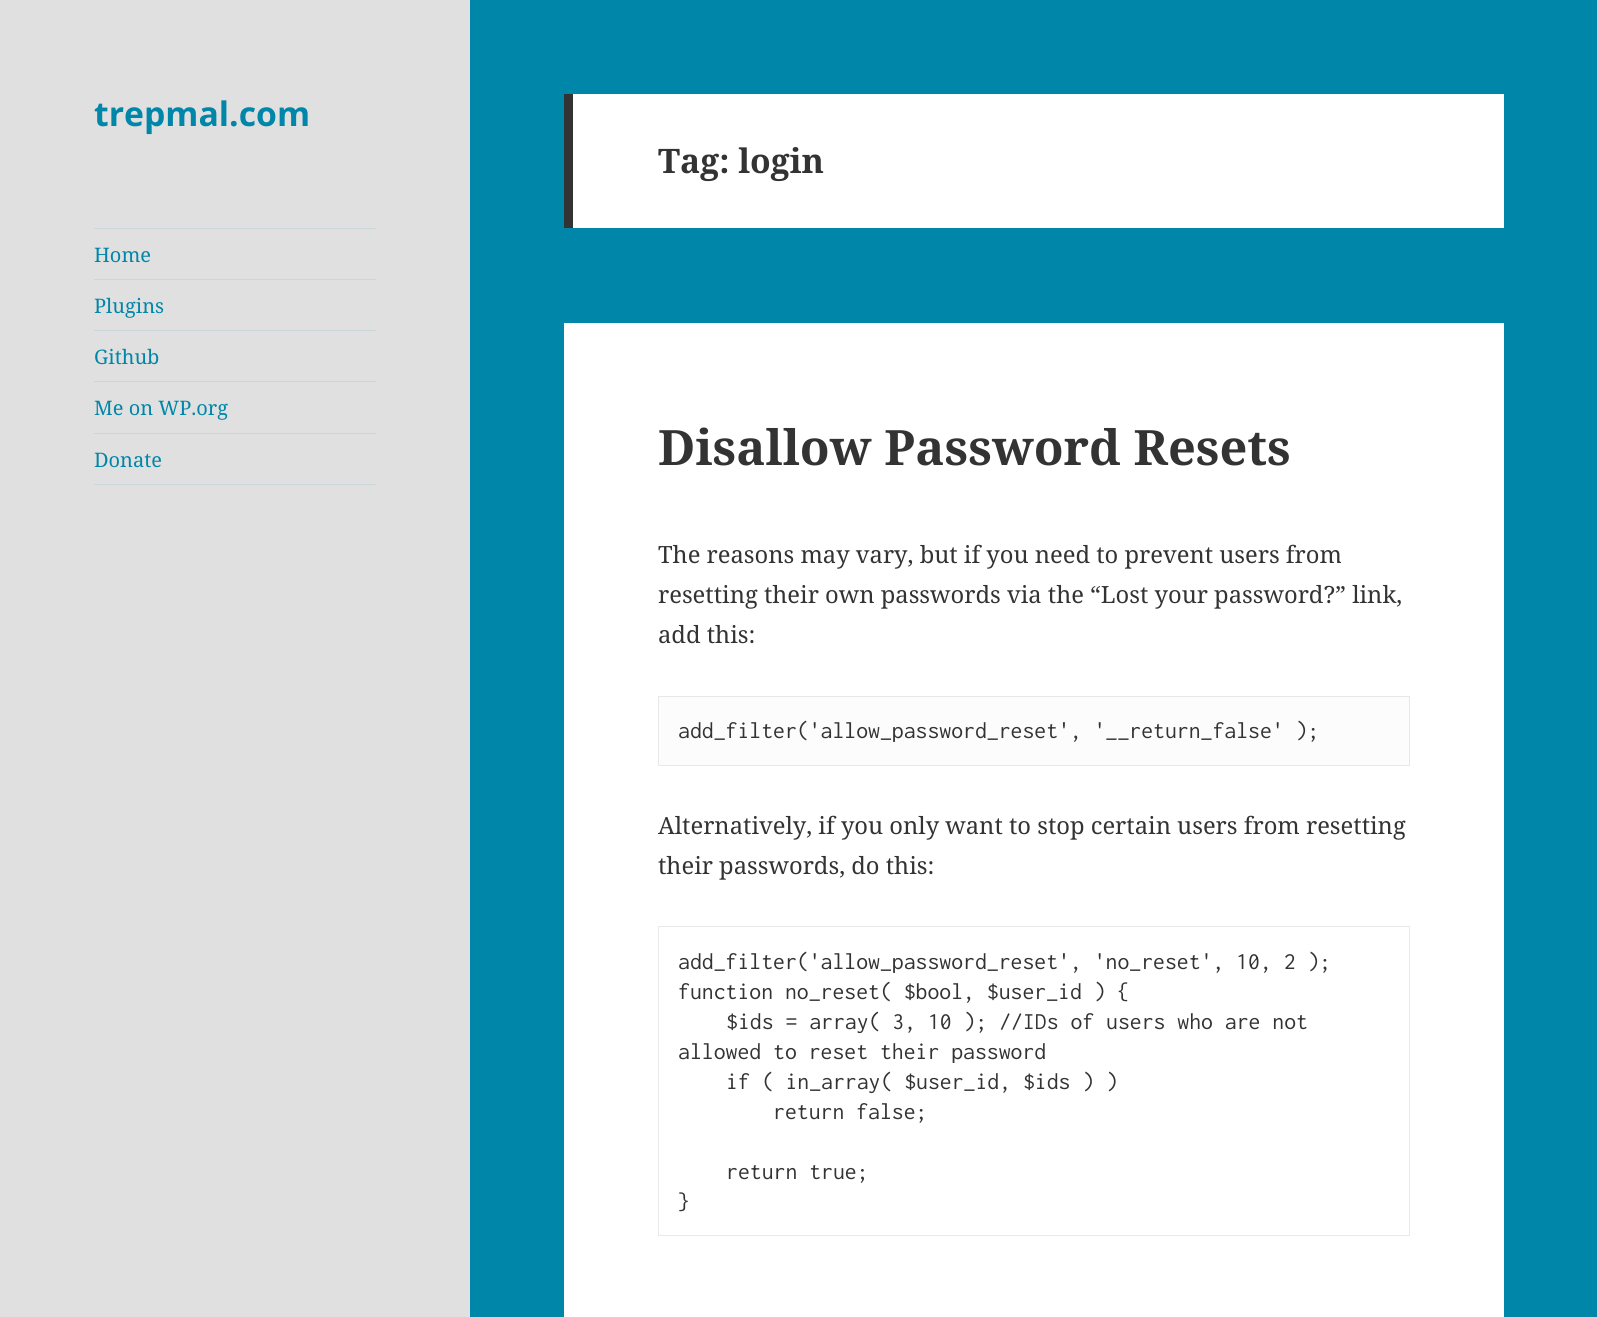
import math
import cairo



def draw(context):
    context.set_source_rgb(0, 134 / 255, 168 / 255)
    context.paint()
    context.set_source_rgb(224 / 255, 224 / 255, 224 / 255)
    context.rectangle(0, 0, 470, 1317)
    context.fill()
    context.set_source_rgb(202 / 255, 215 / 255, 218 / 255)
    context.rectangle(94, 228, 282, 1)
    context.fill()
    context.rectangle(94, 484, 282, 1)
    context.fill()
    context.rectangle(94, 279, 282, 1)
    context.fill()
    context.rectangle(94, 330, 282, 1)
    context.fill()
    context.rectangle(94, 381, 282, 1)
    context.fill()
    context.rectangle(94, 433, 282, 1)
    context.fill()
    context.set_source_rgb(1, 1, 1)
    context.rectangle(573, 94, 931, 134)
    context.fill()
    context.set_source_rgb(51 / 255, 51 / 255, 51 / 255)
    context.rectangle(564, 94, 9, 134)
    context.fill()
    context.set_source_rgb(1, 1, 1)
    context.rectangle(564, 323, 940, 994)
    context.fill()
    context.set_source_rgb(252 / 255, 252 / 255, 252 / 255)
    context.rectangle(658.5, 696.5, 751, 69)
    context.fill_preserve()
    context.set_source_rgb(232 / 255, 232 / 255, 232 / 255)
    context.set_line_width(1)
    context.stroke()
    context.rectangle(658.5, 926.5, 751, 309)
    context.set_source_rgb(233 / 255, 233 / 255, 233 / 255)
    context.stroke()
    context.select_font_face("Noto Sans", cairo.FontSlant.NORMAL, cairo.FontWeight.BOLD)
    context.set_font_size(33.75)
    context.set_source_rgb(0, 134 / 255, 168 / 255)
    context.move_to(94, 126)
    context.show_text("trepmal.com")
    context.select_font_face("Noto Serif")
    context.set_font_size(20)
    context.move_to(94, 262)
    context.show_text("Home")
    context.move_to(94, 313)
    context.show_text("Plugins")
    context.move_to(94, 364)
    context.show_text("Github")
    context.move_to(94, 415)
    context.show_text("Me on WP.org")
    context.move_to(94, 467)
    context.show_text("Donate")
    context.select_font_face("Noto Serif", cairo.FontSlant.NORMAL, cairo.FontWeight.BOLD)
    context.set_font_size(33.75)
    context.set_source_rgb(51 / 255, 51 / 255, 51 / 255)
    context.move_to(658, 173)
    context.show_text("Tag: login")
    context.set_font_size(48.75)
    context.move_to(658, 465)
    context.show_text("Disallow Password Resets")
    context.select_font_face("Noto Serif")
    context.set_font_size(23.75)
    context.move_to(658, 563)
    context.show_text("The reasons may vary, but if you need to prevent users from")
    context.move_to(658, 603)
    context.show_text("resetting their own passwords via the “Lost your password?” link,")
    context.move_to(658, 643)
    context.show_text("add this:")
    context.select_font_face("Inconsolata")
    context.move_to(678, 738)
    context.show_text("add_filter('allow_password_reset', '__return_false' );")
    context.select_font_face("Noto Serif")
    context.move_to(658, 834)
    context.show_text("Alternatively, if you only want to stop certain users from resetting")
    context.move_to(658, 874)
    context.show_text("their passwords, do this:")
    context.select_font_face("Inconsolata")
    context.move_to(678, 969)
    context.show_text("add_filter('allow_password_reset', 'no_reset', 10, 2 );")
    context.move_to(678, 999)
    context.show_text("function no_reset( $bool, $user_id ) {")
    context.move_to(726, 1029)
    context.show_text("$ids = array( 3, 10 ); //IDs of users who are not")
    context.move_to(678, 1059)
    context.show_text("allowed to reset their password")
    context.move_to(726, 1089)
    context.show_text("if ( in_array( $user_id, $ids ) )")
    context.move_to(773, 1119)
    context.show_text("return false;")
    context.move_to(726, 1179)
    context.show_text("return true;")
    context.move_to(678, 1209)
    context.show_text("}")


surface = cairo.ImageSurface(cairo.Format.RGB24, 1597, 1317)
context = cairo.Context(surface)
options = cairo.FontOptions()
options.set_hint_metrics(cairo.HintMetrics.OFF)
options.set_hint_style(cairo.HintStyle.NONE)
context.set_font_options(options)
context.set_miter_limit(4)
draw(context)
surface.write_to_png("out.png")
